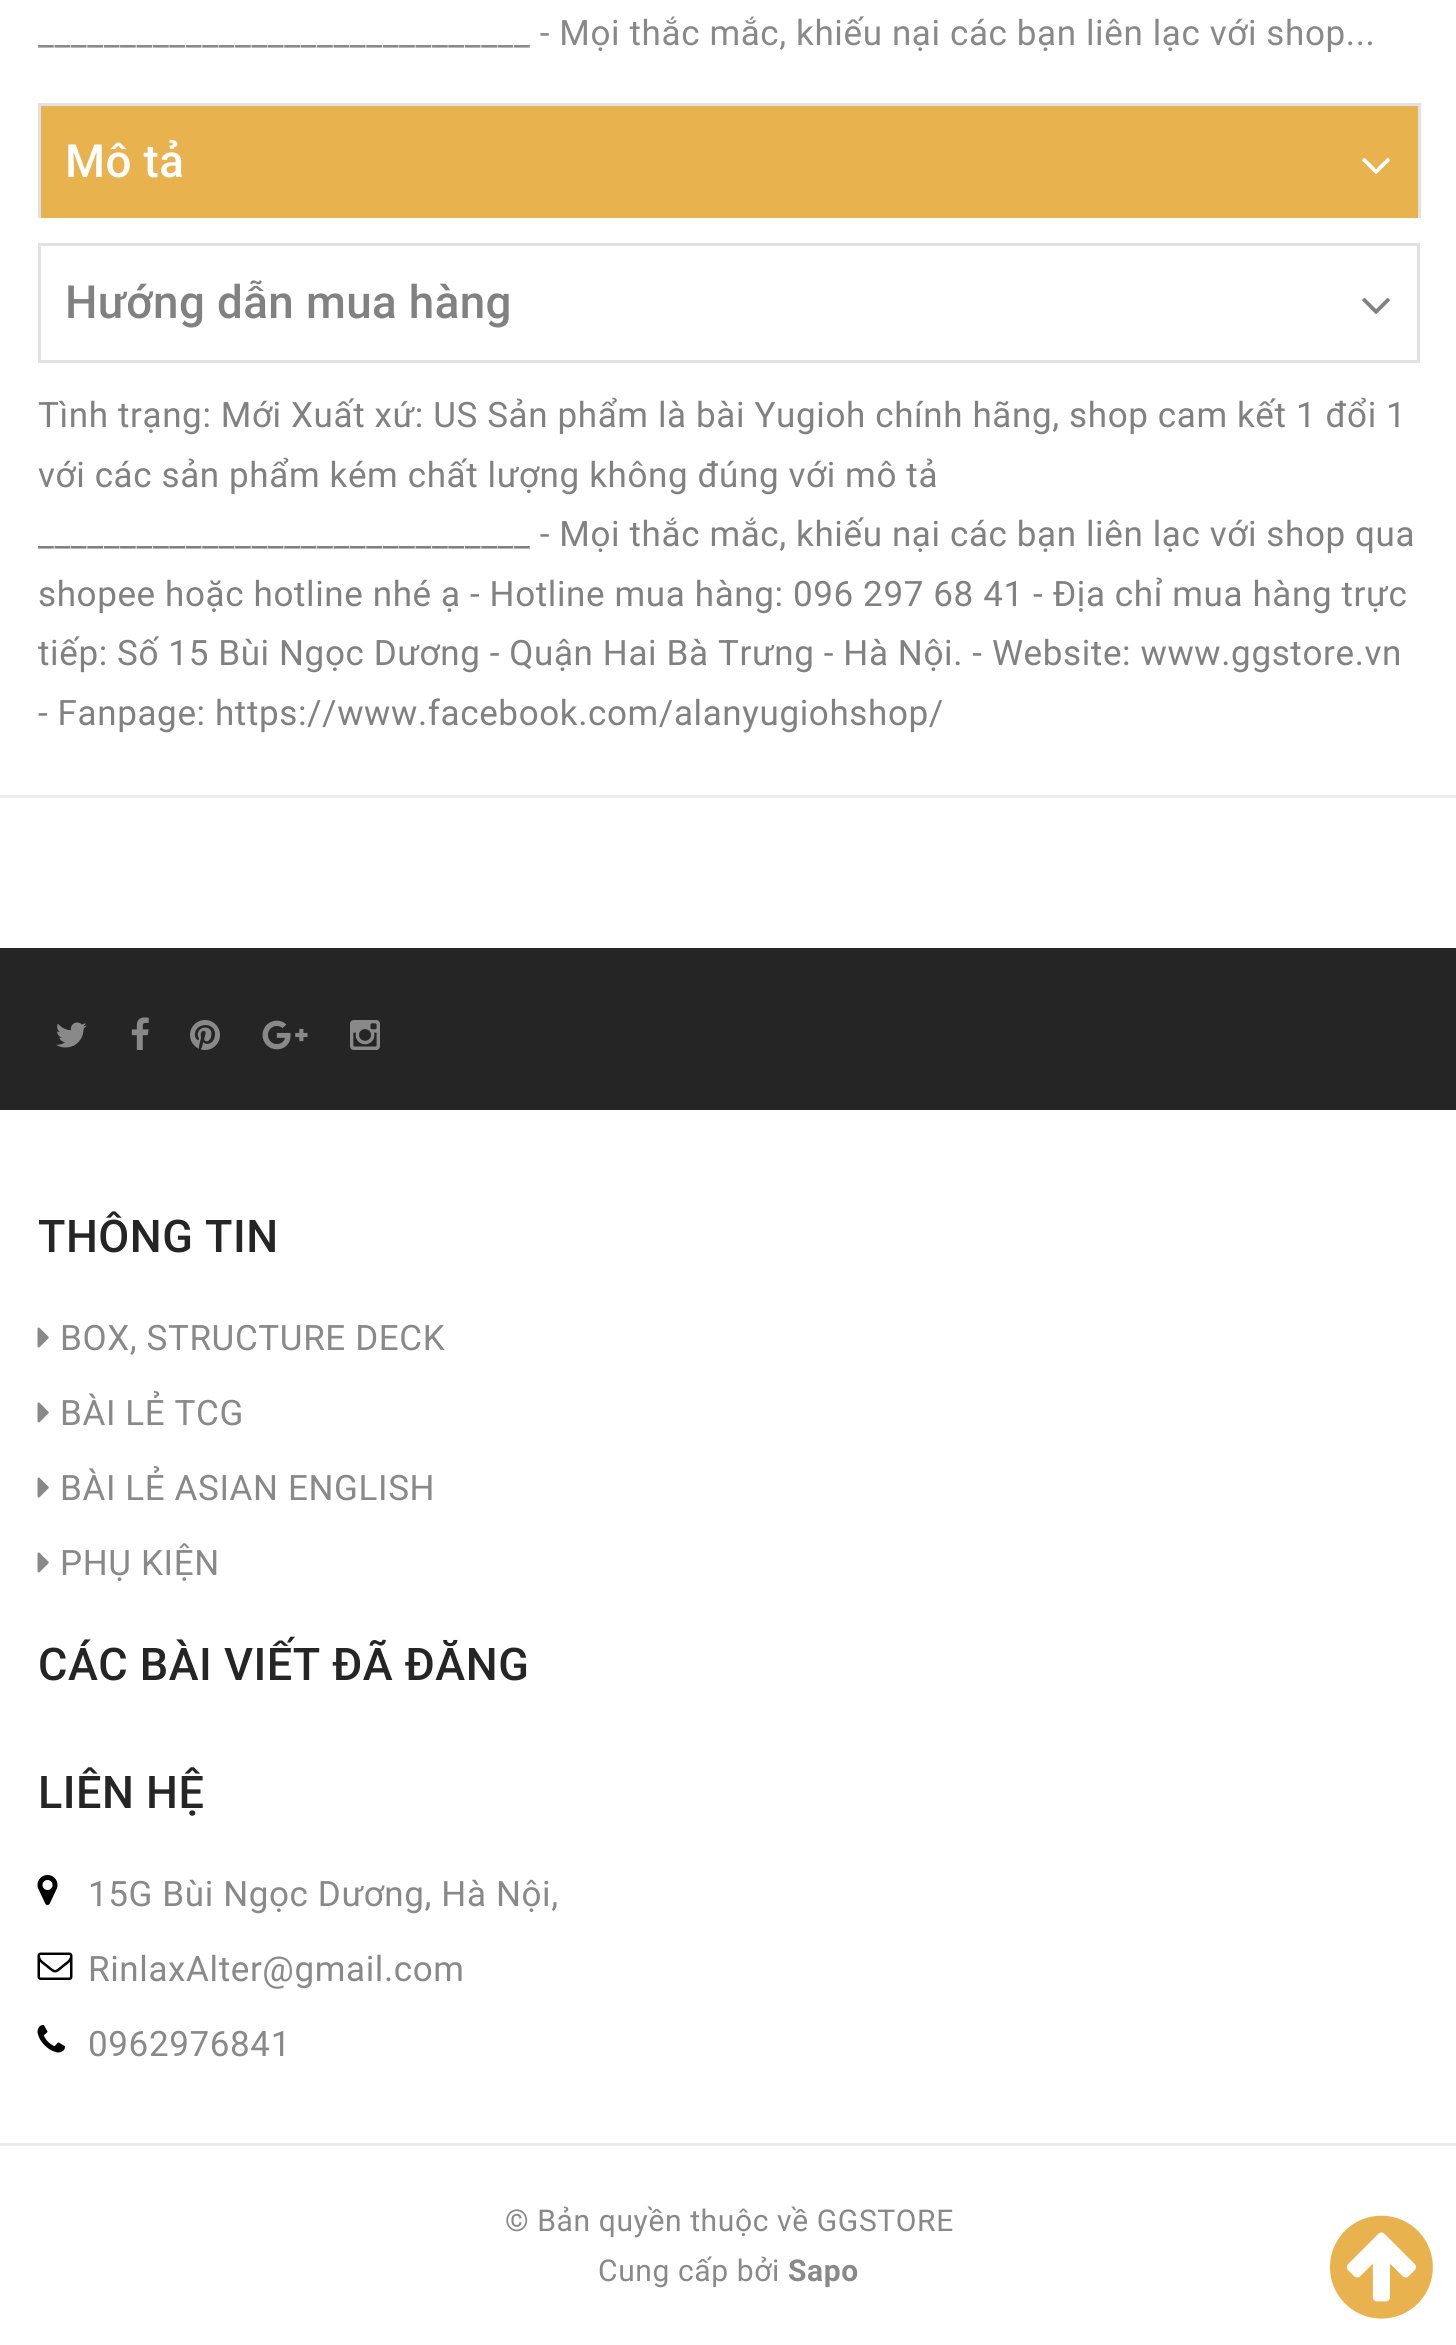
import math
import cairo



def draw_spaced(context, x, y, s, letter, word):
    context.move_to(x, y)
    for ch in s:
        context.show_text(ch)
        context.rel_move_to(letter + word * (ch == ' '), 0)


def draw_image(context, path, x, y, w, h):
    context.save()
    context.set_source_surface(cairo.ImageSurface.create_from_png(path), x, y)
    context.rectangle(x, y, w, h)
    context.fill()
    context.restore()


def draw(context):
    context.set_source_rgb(1, 1, 1)
    context.paint()
    context.set_source_rgb(232 / 255, 179 / 255, 79 / 255)
    context.rectangle(41, 106, 1377, 112)
    context.fill()
    context.set_source_rgb(225 / 255, 225 / 255, 225 / 255)
    context.rectangle(38, 103, 1382, 3)
    context.fill()
    context.rectangle(1418, 103, 3, 115)
    context.fill()
    context.rectangle(38, 103, 3, 115)
    context.fill()
    draw_image(context, "images/1.png", 1362, 157, 28, 17)
    context.rectangle(39.5, 244.5, 1379, 117)
    context.set_line_width(3)
    context.stroke()
    draw_image(context, "images/2.png", 1362, 297, 28, 17)
    context.set_source_rgb(235 / 255, 235 / 255, 235 / 255)
    context.rectangle(0, 795, 1456, 3)
    context.fill()
    context.set_source_rgb(37 / 255, 37 / 255, 37 / 255)
    context.rectangle(0, 948, 1456, 162)
    context.fill()
    draw_image(context, "images/3.png", 56, 1022, 31, 26)
    draw_image(context, "images/4.png", 131, 1017, 18, 33)
    draw_image(context, "images/5.png", 190, 1020, 30, 30)
    draw_image(context, "images/6.png", 262, 1020, 46, 30)
    draw_image(context, "images/7.png", 350, 1020, 30, 30)
    draw_image(context, "images/8.png", 37, 1327, 12, 21)
    draw_image(context, "images/8.png", 37, 1402, 12, 21)
    draw_image(context, "images/8.png", 37, 1477, 12, 21)
    draw_image(context, "images/8.png", 37, 1552, 12, 21)
    draw_image(context, "images/9.png", 37, 1875, 21, 30)
    draw_image(context, "images/10.png", 37, 1952, 36, 28)
    draw_image(context, "images/11.png", 37, 2025, 28, 28)
    context.set_source_rgb(235 / 255, 235 / 255, 235 / 255)
    context.rectangle(0, 2143, 1456, 3)
    context.fill()
    draw_image(context, "images/12.png", 1330, 2215, 103, 104)
    context.select_font_face("Roboto")
    context.set_font_size(35)
    context.set_source_rgb(137 / 255, 137 / 255, 137 / 255)
    draw_spaced(context, 38, 45, "______________________________ - Mọi thắc mắc, khiếu nại các bạn liên lạc với shop...", 0.62, 0)
    context.select_font_face("Roboto Medium")
    context.set_font_size(45.75)
    context.set_source_rgb(1, 1, 1)
    draw_spaced(context, 65, 177, "Mô tả", 0.4, 0)
    context.set_source_rgb(129 / 255, 129 / 255, 129 / 255)
    draw_spaced(context, 65, 318, "Hướng dẫn mua hàng", 0.4, 0)
    context.select_font_face("Roboto")
    context.set_font_size(35)
    draw_spaced(context, 38, 427, "Tình trạng: Mới Xuất xứ: US Sản phẩm là bài Yugioh chính hãng, shop cam kết 1 đổi 1", 0.62, 0)
    draw_spaced(context, 38, 487, "với các sản phẩm kém chất lượng không đúng với mô tả", 0.62, 0)
    context.save()
    context.rectangle(38, 388, 1382, 407)
    context.clip()
    draw_spaced(context, 38, 546, "______________________________ - Mọi thắc mắc, khiếu nại các bạn liên lạc với shop qua", 0.62, 0)
    context.restore()
    draw_spaced(context, 38, 606, "shopee hoặc hotline nhé ạ - Hotline mua hàng: 096 297 68 41 - Địa chỉ mua hàng trực", 0.62, 0)
    context.save()
    context.rectangle(38, 388, 1382, 407)
    context.clip()
    draw_spaced(context, 38, 665, "tiếp: Số 15 Bùi Ngọc Dương - Quận Hai Bà Trưng - Hà Nội. - Website: www.ggstore.vn", 0.62, 0)
    context.restore()
    draw_spaced(context, 38, 725, "- Fanpage: https://www.facebook.com/alanyugiohshop/", 0.62, 0)
    context.select_font_face("Roboto Medium")
    context.set_font_size(45)
    context.set_source_rgb(37 / 255, 37 / 255, 37 / 255)
    draw_spaced(context, 38, 1252, "THÔNG TIN", 0.5, 0)
    context.select_font_face("Roboto")
    context.set_font_size(35)
    context.set_source_rgb(137 / 255, 137 / 255, 137 / 255)
    draw_spaced(context, 60, 1350, "BOX, STRUCTURE DECK", 0.62, 0)
    draw_spaced(context, 60, 1425, "BÀI LẺ TCG", 0.62, 0)
    draw_spaced(context, 60, 1500, "BÀI LẺ ASIAN ENGLISH", 0.62, 0)
    draw_spaced(context, 60, 1575, "PHỤ KIỆN", 0.62, 0)
    context.select_font_face("Roboto Medium")
    context.set_font_size(45)
    context.set_source_rgb(37 / 255, 37 / 255, 37 / 255)
    draw_spaced(context, 38, 1680, "CÁC BÀI VIẾT ĐÃ ĐĂNG", 0.5, 0)
    draw_spaced(context, 38, 1808, "LIÊN HỆ", 0.5, 0)
    context.select_font_face("Roboto")
    context.set_font_size(35)
    context.set_source_rgb(137 / 255, 137 / 255, 137 / 255)
    draw_spaced(context, 88, 1906, "15G Bùi Ngọc Dương, Hà Nội,", 0.62, 0)
    draw_spaced(context, 88, 1981, "RinlaxAlter@gmail.com", 0.62, 0)
    draw_spaced(context, 88, 2056, "0962976841", 0.62, 0)
    context.set_font_size(30)
    draw_spaced(context, 505, 2231, "© Bản quyền thuộc về GGSTORE", 0.62, 0)
    draw_spaced(context, 598, 2281, "Cung cấp bởi", 0.62, 0)
    context.select_font_face("Roboto", cairo.FontSlant.NORMAL, cairo.FontWeight.BOLD)
    draw_spaced(context, 788, 2281, "Sapo", 0.62, 0)


surface = cairo.ImageSurface(cairo.Format.RGB24, 1456, 2345)
context = cairo.Context(surface)
options = cairo.FontOptions()
options.set_hint_metrics(cairo.HintMetrics.OFF)
options.set_hint_style(cairo.HintStyle.NONE)
context.set_font_options(options)
context.set_miter_limit(4)
draw(context)
surface.write_to_png("out.png")
